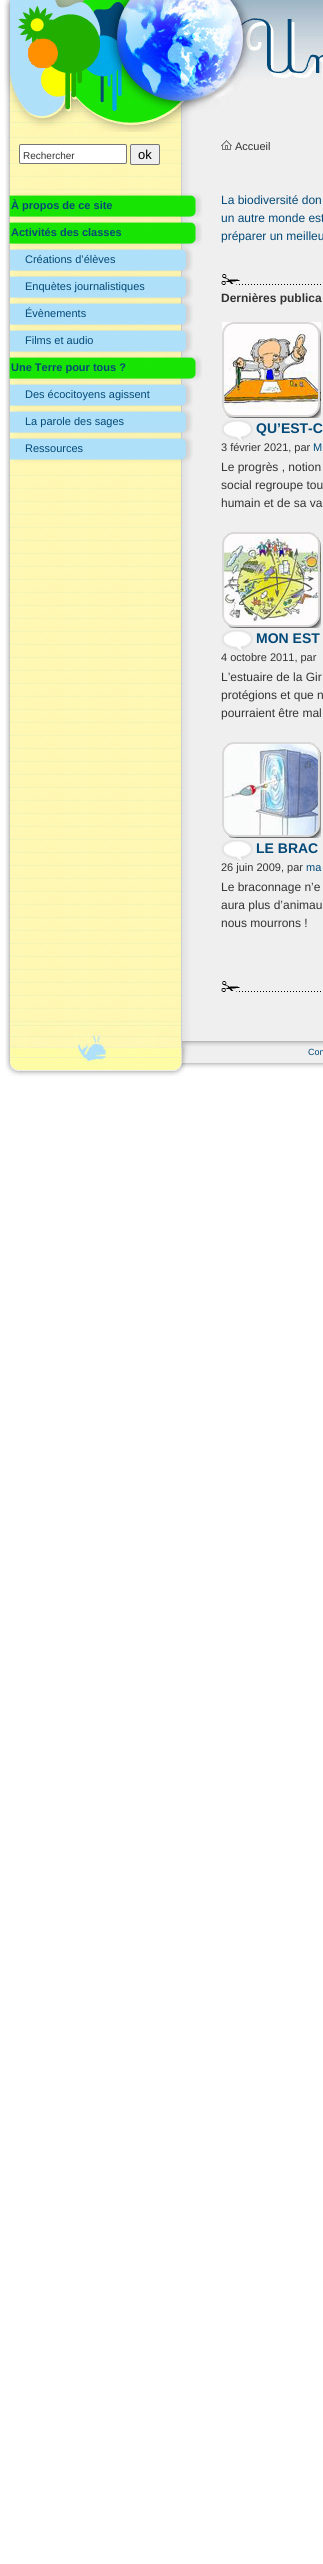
import math
import cairo



def rounded_rect(context, x, y, w, h, r):
    context.new_sub_path()
    for i, (u, v) in enumerate([(x + w - r, y + h - r), (x + r, y + h - r), (x + r, y + r), (x + w - r, y + r)]):
        context.arc(u, v, r, i * math.pi / 2, (i + 1) * math.pi / 2)
    context.close_path()


def draw_image(context, path, x, y, w, h):
    context.save()
    context.set_source_surface(cairo.ImageSurface.create_from_png(path), x, y)
    context.rectangle(x, y, w, h)
    context.fill()
    context.restore()


def draw(context):
    context.set_source_rgb(1, 1, 1)
    context.paint()
    draw_image(context, "images/1.png", 5, 132, 318, 891)
    draw_image(context, "images/2.png", 4, 0, 319, 132)
    context.set_source_rgb(1, 1, 1)
    rounded_rect(context, 19.5, 144.5, 107, 19, 1.5)
    context.fill_preserve()
    context.set_source_rgb(118 / 255, 118 / 255, 118 / 255)
    context.set_line_width(1)
    context.stroke()
    context.set_source_rgb(239 / 255, 239 / 255, 239 / 255)
    rounded_rect(context, 130.5, 144.5, 29, 20, 1.5)
    context.fill_preserve()
    context.set_source_rgb(118 / 255, 118 / 255, 118 / 255)
    context.stroke()
    draw_image(context, "images/3.png", 9, 193, 193, 27)
    draw_image(context, "images/3.png", 9, 220, 193, 27)
    draw_image(context, "images/4.png", 10, 247, 183, 27)
    draw_image(context, "images/4.png", 10, 274, 183, 27)
    draw_image(context, "images/5.png", 9, 301, 184, 27)
    draw_image(context, "images/4.png", 10, 328, 183, 27)
    draw_image(context, "images/3.png", 9, 355, 193, 27)
    draw_image(context, "images/5.png", 9, 382, 184, 27)
    draw_image(context, "images/4.png", 10, 409, 183, 27)
    draw_image(context, "images/5.png", 9, 436, 184, 27)
    draw_image(context, "images/6.png", 221, 140, 11, 10)
    draw_image(context, "images/7.png", 221, 274, 100, 11)
    draw_image(context, "images/8.png", 222, 322, 99, 96)
    draw_image(context, "images/9.png", 221, 420, 32, 21)
    draw_image(context, "images/10.png", 222, 532, 99, 96)
    draw_image(context, "images/9.png", 221, 630, 32, 21)
    draw_image(context, "images/11.png", 222, 742, 99, 96)
    draw_image(context, "images/9.png", 221, 840, 32, 21)
    draw_image(context, "images/7.png", 221, 981, 100, 11)
    draw_image(context, "images/12.png", 5, 1023, 318, 56)
    draw_image(context, "images/13.png", 70, 1033, 43, 32)
    context.select_font_face("Liberation Sans")
    context.set_font_size(10)
    context.set_source_rgb(51 / 255, 51 / 255, 51 / 255)
    context.move_to(23, 159)
    context.show_text("Rechercher")
    context.set_font_size(13)
    context.set_source_rgb(0, 0, 0)
    context.move_to(138, 159)
    context.show_text("ok")
    context.select_font_face("Liberation Sans", cairo.FontSlant.NORMAL, cairo.FontWeight.BOLD)
    context.set_font_size(11)
    context.set_source_rgb(3 / 255, 73 / 255, 120 / 255)
    context.move_to(11, 209)
    context.show_text("À propos de ce site")
    context.move_to(11, 236)
    context.show_text("Activités des classes")
    context.select_font_face("Liberation Sans")
    context.move_to(25, 263)
    context.show_text("Créations d’élèves")
    context.move_to(25, 290)
    context.show_text("Enquètes journalistiques")
    context.move_to(25, 317)
    context.show_text("Évènements")
    context.move_to(25, 344)
    context.show_text("Films et audio")
    context.select_font_face("Liberation Sans", cairo.FontSlant.NORMAL, cairo.FontWeight.BOLD)
    context.move_to(11, 371)
    context.show_text("Une Terre pour tous ?")
    context.select_font_face("Liberation Sans")
    context.move_to(25, 398)
    context.show_text("Des écocitoyens agissent")
    context.move_to(25, 425)
    context.show_text("La parole des sages")
    context.move_to(25, 452)
    context.show_text("Ressources")
    context.set_source_rgb(51 / 255, 51 / 255, 51 / 255)
    context.move_to(235, 150)
    context.show_text("Accueil")
    context.set_font_size(12)
    context.set_source_rgb(3 / 255, 73 / 255, 120 / 255)
    context.move_to(221, 204)
    context.show_text("La biodiversité don")
    context.move_to(221, 222)
    context.show_text("un autre monde est")
    context.move_to(221, 240)
    context.show_text("préparer un meilleu")
    context.select_font_face("Liberation Sans", cairo.FontSlant.NORMAL, cairo.FontWeight.BOLD)
    context.set_source_rgb(51 / 255, 51 / 255, 51 / 255)
    context.move_to(221, 302)
    context.show_text("Dernières publica")
    context.set_font_size(14)
    context.set_source_rgb(3 / 255, 73 / 255, 120 / 255)
    context.move_to(256, 433)
    context.show_text("QU’EST-C")
    context.select_font_face("Liberation Sans")
    context.set_font_size(11)
    context.set_source_rgb(51 / 255, 51 / 255, 51 / 255)
    context.move_to(221, 451)
    context.show_text("3 février 2021, par")
    context.set_source_rgb(3 / 255, 73 / 255, 120 / 255)
    context.move_to(313, 451)
    context.show_text("M")
    context.set_font_size(12)
    context.set_source_rgb(51 / 255, 51 / 255, 51 / 255)
    context.move_to(221, 471)
    context.show_text("Le progrès , notion")
    context.move_to(221, 489)
    context.show_text("social regroupe tou")
    context.move_to(221, 507)
    context.show_text("humain et de sa va")
    context.select_font_face("Liberation Sans", cairo.FontSlant.NORMAL, cairo.FontWeight.BOLD)
    context.set_font_size(14)
    context.set_source_rgb(3 / 255, 73 / 255, 120 / 255)
    context.move_to(256, 643)
    context.show_text("MON EST")
    context.select_font_face("Liberation Sans")
    context.set_font_size(11)
    context.set_source_rgb(51 / 255, 51 / 255, 51 / 255)
    context.move_to(221, 661)
    context.show_text("4 octobre 2011, par")
    context.set_font_size(12)
    context.move_to(221, 681)
    context.show_text("L’estuaire de la Gir")
    context.move_to(221, 699)
    context.show_text("protégions et que n")
    context.move_to(221, 717)
    context.show_text("pourraient être mal")
    context.select_font_face("Liberation Sans", cairo.FontSlant.NORMAL, cairo.FontWeight.BOLD)
    context.set_font_size(14)
    context.set_source_rgb(3 / 255, 73 / 255, 120 / 255)
    context.move_to(256, 853)
    context.show_text("LE BRAC")
    context.select_font_face("Liberation Sans")
    context.set_font_size(11)
    context.set_source_rgb(51 / 255, 51 / 255, 51 / 255)
    context.move_to(221, 871)
    context.show_text("26 juin 2009, par")
    context.set_source_rgb(3 / 255, 73 / 255, 120 / 255)
    context.move_to(306, 871)
    context.show_text("ma")
    context.set_font_size(12)
    context.set_source_rgb(51 / 255, 51 / 255, 51 / 255)
    context.move_to(221, 891)
    context.show_text("Le braconnage n’e")
    context.move_to(221, 909)
    context.show_text("aura plus d’animau")
    context.move_to(221, 927)
    context.show_text("nous mourrons !")
    context.set_font_size(9)
    context.set_source_rgb(3 / 255, 73 / 255, 120 / 255)
    context.move_to(308, 1055)
    context.show_text("Con")


surface = cairo.ImageSurface(cairo.Format.RGB24, 323, 2564)
context = cairo.Context(surface)
options = cairo.FontOptions()
options.set_hint_metrics(cairo.HintMetrics.OFF)
options.set_hint_style(cairo.HintStyle.NONE)
context.set_font_options(options)
context.set_miter_limit(4)
draw(context)
surface.write_to_png("out.png")
